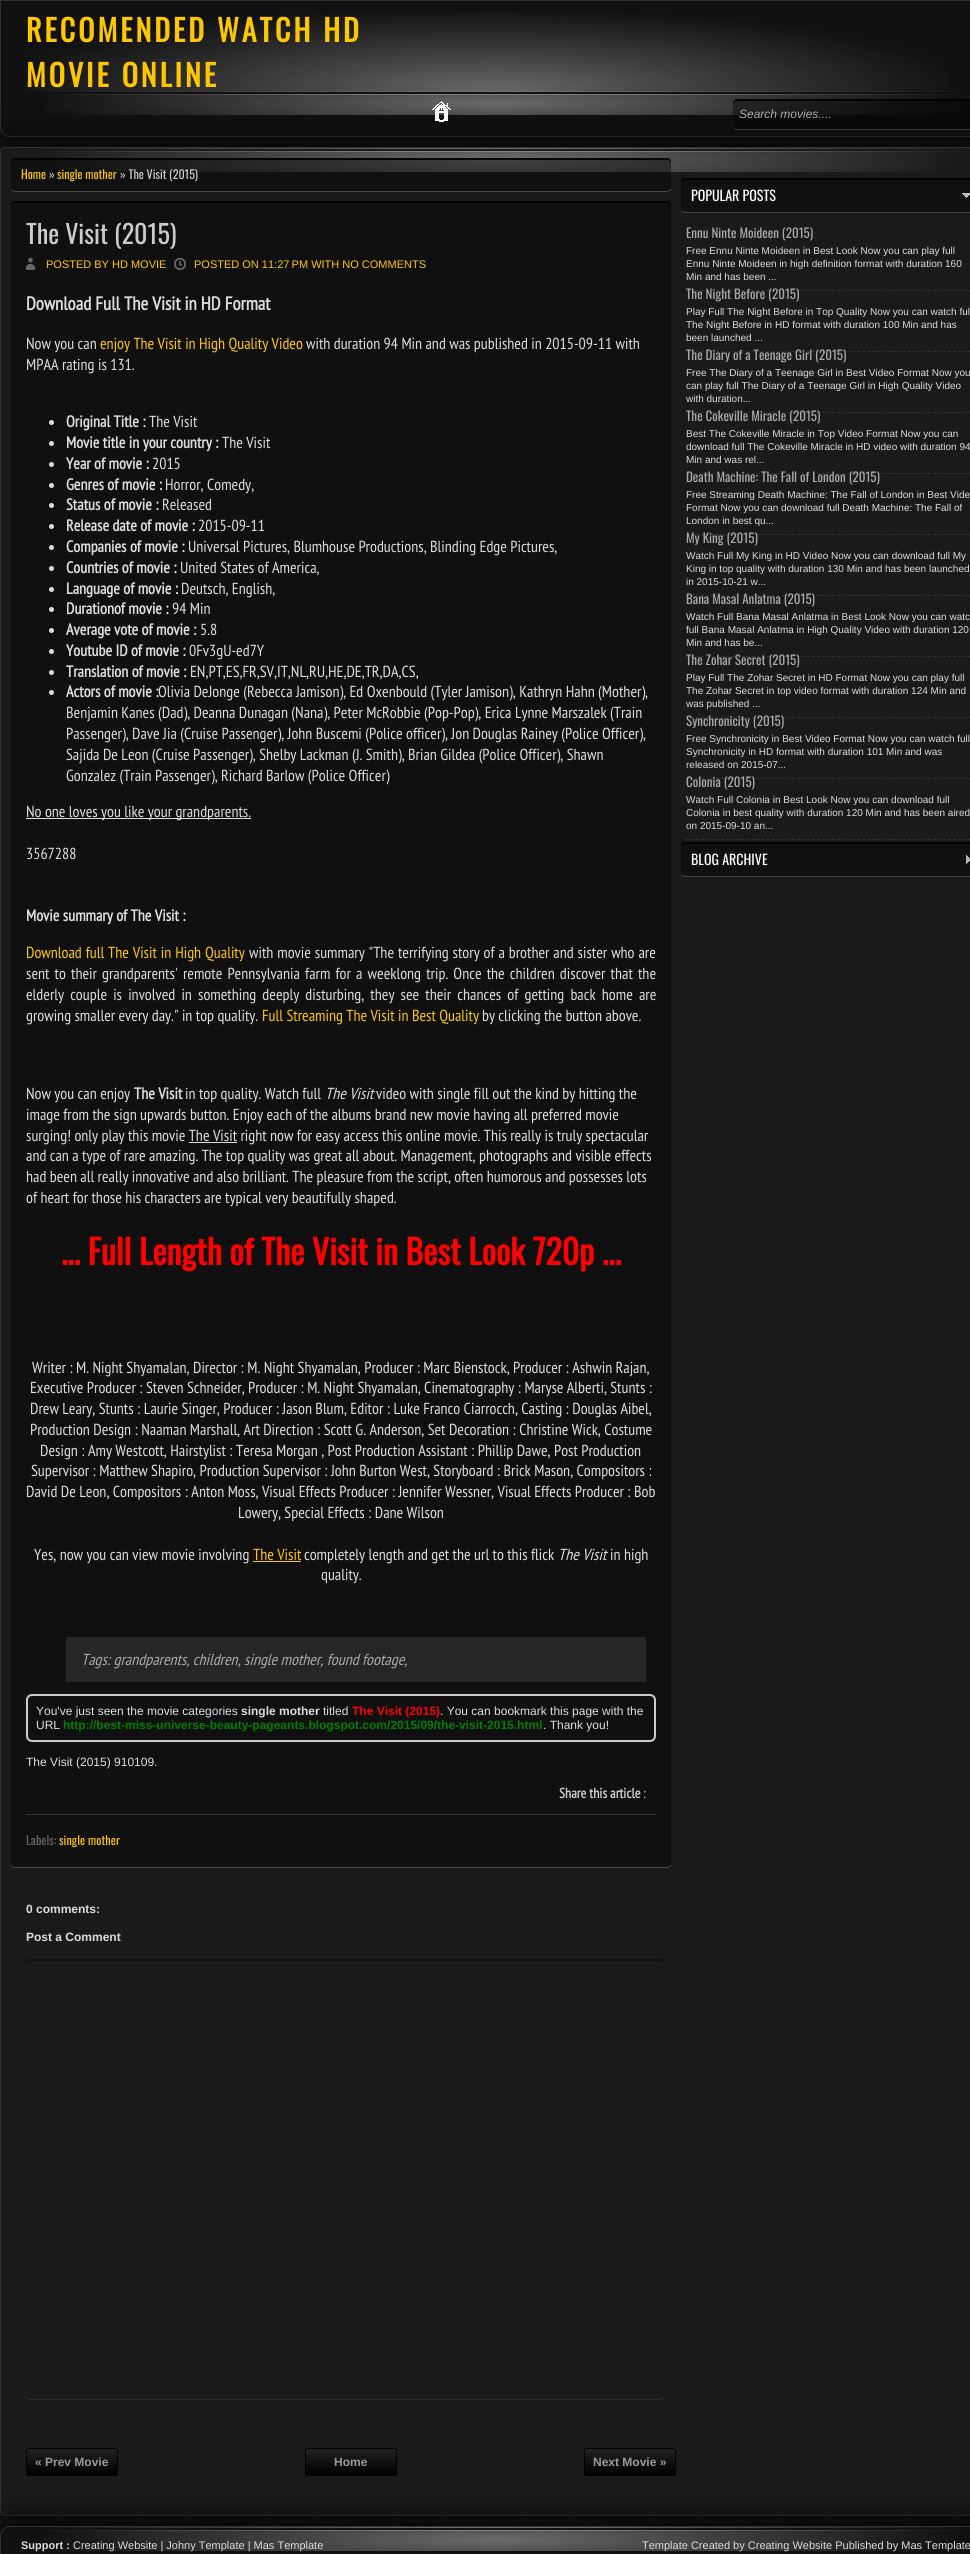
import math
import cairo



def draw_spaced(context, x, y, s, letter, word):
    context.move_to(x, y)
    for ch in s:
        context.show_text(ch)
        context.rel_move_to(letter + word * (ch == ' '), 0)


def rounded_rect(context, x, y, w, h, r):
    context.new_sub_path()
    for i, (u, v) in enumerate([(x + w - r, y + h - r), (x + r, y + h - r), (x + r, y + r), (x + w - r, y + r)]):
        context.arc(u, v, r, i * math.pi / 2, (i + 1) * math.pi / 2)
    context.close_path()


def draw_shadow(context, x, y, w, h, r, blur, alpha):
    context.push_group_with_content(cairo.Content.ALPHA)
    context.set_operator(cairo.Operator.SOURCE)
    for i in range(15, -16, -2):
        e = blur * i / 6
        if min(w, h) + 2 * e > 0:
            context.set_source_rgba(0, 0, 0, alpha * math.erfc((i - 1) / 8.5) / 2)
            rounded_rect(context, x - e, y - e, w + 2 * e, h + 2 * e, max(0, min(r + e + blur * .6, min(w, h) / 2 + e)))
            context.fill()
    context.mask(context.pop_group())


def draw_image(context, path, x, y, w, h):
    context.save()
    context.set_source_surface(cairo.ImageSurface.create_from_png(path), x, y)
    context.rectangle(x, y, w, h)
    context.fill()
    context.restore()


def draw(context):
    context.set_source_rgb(0, 0, 0)
    context.paint()
    draw_image(context, "images/1.png", 0, 127, 970, 2409)
    draw_shadow(context, 0, 0, 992, 137, 10, 20, 1)
    context.set_source_rgb(17 / 255, 17 / 255, 17 / 255)
    context.new_path()
    context.move_to(0.5, 0.5)
    context.line_to(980.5, 0.5)
    context.line_to(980.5, 127)
    context.curve_to(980.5, 132, 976, 136.5, 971, 136.5)
    context.line_to(10, 136.5)
    context.curve_to(5, 136.5, 0.5, 132, 0.5, 127)
    context.close_path()
    context.fill_preserve()
    context.set_source_rgb(50 / 255, 50 / 255, 50 / 255)
    context.set_line_width(1)
    context.stroke()
    draw_image(context, "images/2.png", 26, 12, 922, 79)
    draw_image(context, "images/3.png", 45, 91, 916, 24)
    context.set_source_rgb(0, 0, 0)
    draw_shadow(context, 0, 147, 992, 2369, 5, 20, 1)
    draw_image(context, "images/4.png", 432, 101, 19, 21)
    context.set_source_rgb(62 / 255, 62 / 255, 62 / 255)
    context.new_path()
    context.move_to(733, 125)
    context.curve_to(733, 128, 734, 130, 737, 130)
    context.line_to(969, 130)
    context.curve_to(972, 130, 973, 128, 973, 125)
    context.curve_to(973, 127, 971, 129, 969, 129)
    context.line_to(737, 129)
    context.curve_to(735, 129, 733, 127, 733, 125)
    context.close_path()
    context.fill()
    context.set_source_rgba(0, 0, 0, 0.4)
    rounded_rect(context, 733, 99, 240, 30, 4)
    context.fill()
    context.set_source_rgba(0, 0, 0, 0.9)
    context.new_path()
    context.move_to(737, 101)
    context.line_to(969, 101)
    context.curve_to(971, 101, 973, 103, 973, 105)
    context.line_to(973, 103)
    context.curve_to(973, 101, 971, 99, 969, 99)
    context.line_to(737, 99)
    context.curve_to(735, 99, 733, 101, 733, 103)
    context.line_to(733, 105)
    context.curve_to(733, 103, 735, 101, 737, 101)
    context.close_path()
    context.fill()
    context.set_source_rgb(26 / 255, 26 / 255, 26 / 255)
    rounded_rect(context, 0, 147, 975, 2369, 5)
    context.fill()
    draw_image(context, "images/5.png", 45, 148, 912, 24)
    rounded_rect(context, 0.5, 147.5, 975, 2368, 4.5)
    context.set_source_rgb(51 / 255, 51 / 255, 51 / 255)
    context.stroke()
    context.set_source_rgb(72 / 255, 72 / 255, 72 / 255)
    context.new_path()
    context.move_to(11, 187)
    context.curve_to(11, 190, 12, 192, 15, 192)
    context.line_to(667, 192)
    context.line_to(670, 191)
    context.line_to(671, 190)
    context.line_to(671, 187)
    context.curve_to(671, 189, 669, 191, 667, 191)
    context.line_to(15, 191)
    context.curve_to(13, 191, 11, 189, 11, 187)
    context.close_path()
    context.fill()
    context.set_source_rgba(0, 0, 0, 0.4)
    rounded_rect(context, 11, 158, 660, 33, 4)
    context.fill()
    context.set_source_rgba(0, 0, 0, 0.9)
    context.new_path()
    context.move_to(15, 160)
    context.line_to(667, 160)
    context.curve_to(669, 160, 671, 162, 671, 164)
    context.curve_to(671, 161, 671, 158, 667, 158)
    context.line_to(13, 158)
    context.line_to(12, 160)
    context.curve_to(11, 161, 11, 163, 11, 164)
    context.curve_to(11, 162, 13, 160, 15, 160)
    context.close_path()
    context.fill()
    context.set_source_rgb(72 / 255, 72 / 255, 72 / 255)
    context.new_path()
    context.move_to(11, 1863)
    context.curve_to(11, 1866, 12, 1868, 15, 1868)
    context.line_to(667, 1868)
    context.line_to(670, 1867)
    context.line_to(671, 1866)
    context.line_to(671, 1863)
    context.curve_to(671, 1865, 669, 1867, 667, 1867)
    context.line_to(15, 1867)
    context.curve_to(13, 1867, 11, 1865, 11, 1863)
    context.close_path()
    context.fill()
    context.set_source_rgba(0, 0, 0, 0.4)
    rounded_rect(context, 11, 201, 660, 1666, 4)
    context.fill()
    context.set_source_rgba(0, 0, 0, 0.9)
    context.new_path()
    context.move_to(15, 203)
    context.line_to(667, 203)
    context.curve_to(669, 203, 671, 205, 671, 207)
    context.curve_to(671, 204, 671, 201, 667, 201)
    context.line_to(13, 201)
    context.line_to(12, 203)
    context.curve_to(11, 204, 11, 206, 11, 207)
    context.curve_to(11, 205, 13, 203, 15, 203)
    context.close_path()
    context.fill()
    draw_image(context, "images/6.png", 26, 258, 9, 12)
    draw_image(context, "images/7.png", 174, 258, 12, 12)
    context.set_source_rgb(221 / 255, 221 / 255, 221 / 255)
    context.arc(51.5, 422.5, 2.5, 0, 2 * math.pi)
    context.fill()
    context.arc(51.5, 443.5, 2.5, 0, 2 * math.pi)
    context.fill()
    context.arc(51.5, 464.5, 2.5, 0, 2 * math.pi)
    context.fill()
    context.arc(51.5, 485.5, 2.5, 0, 2 * math.pi)
    context.fill()
    context.arc(51.5, 505.5, 2.5, 0, 2 * math.pi)
    context.fill()
    context.arc(51.5, 526.5, 2.5, 0, 2 * math.pi)
    context.fill()
    context.arc(51.5, 547.5, 2.5, 0, 2 * math.pi)
    context.fill()
    context.arc(51.5, 568.5, 2.5, 0, 2 * math.pi)
    context.fill()
    context.arc(51.5, 589.5, 2.5, 0, 2 * math.pi)
    context.fill()
    context.arc(51.5, 609.5, 2.5, 0, 2 * math.pi)
    context.fill()
    context.arc(51.5, 630.5, 2.5, 0, 2 * math.pi)
    context.fill()
    context.arc(51.5, 651.5, 2.5, 0, 2 * math.pi)
    context.fill()
    context.arc(51.5, 672.5, 2.5, 0, 2 * math.pi)
    context.fill()
    context.arc(51.5, 692.5, 2.5, 0, 2 * math.pi)
    context.fill()
    context.rectangle(26, 818, 225, 1)
    context.fill()
    context.rectangle(189, 1142, 48, 1)
    context.fill()
    context.set_source_rgb(254 / 255, 199 / 255, 0)
    context.rectangle(253, 1561, 48, 1)
    context.fill()
    context.set_source_rgb(38 / 255, 38 / 255, 38 / 255)
    context.rectangle(66, 1637, 580, 45)
    context.fill()
    rounded_rect(context, 27, 1695, 628, 46, 5)
    context.set_source_rgb(204 / 255, 204 / 255, 204 / 255)
    context.set_line_width(2)
    context.stroke()
    context.set_source_rgb(50 / 255, 50 / 255, 50 / 255)
    context.rectangle(26, 1814, 630, 1)
    context.fill()
    context.set_source_rgb(16 / 255, 16 / 255, 16 / 255)
    context.new_path()
    context.move_to(30, 1961)
    context.line_to(660, 1961)
    context.curve_to(662, 1961, 664, 1963, 664, 1965)
    context.curve_to(664, 1962, 664, 1959, 660, 1959)
    context.line_to(28, 1959)
    context.line_to(27, 1961)
    context.curve_to(26, 1962, 26, 1964, 26, 1965)
    context.curve_to(26, 1963, 28, 1961, 30, 1961)
    context.close_path()
    context.fill()
    context.set_source_rgb(44 / 255, 44 / 255, 44 / 255)
    context.new_path()
    context.move_to(26, 2395)
    context.curve_to(26, 2398, 27, 2400, 30, 2400)
    context.line_to(660, 2400)
    context.curve_to(663, 2400, 664, 2398, 664, 2395)
    context.curve_to(664, 2397, 662, 2399, 660, 2399)
    context.line_to(30, 2399)
    context.curve_to(28, 2399, 26, 2397, 26, 2395)
    context.close_path()
    context.fill()
    context.set_source_rgb(0, 0, 0)
    draw_shadow(context, 0, 2526, 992, 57, 10, 20, 1)
    context.save()
    rounded_rect(context, 26, 2448, 92, 28, 3)
    context.clip()
    gradient = cairo.LinearGradient(72, 2449, 72, 2475)
    gradient.add_color_stop_rgba(0, 34 / 255, 34 / 255, 34 / 255, 1)
    gradient.add_color_stop_rgba(1, 0, 0, 0, 1)
    context.set_source(gradient)
    context.rectangle(26, 2449, 92, 26)
    context.fill()
    context.restore()
    rounded_rect(context, 26.5, 2448.5, 91, 27, 2.5)
    context.set_source_rgb(0, 0, 0)
    context.set_line_width(1)
    context.stroke()
    context.save()
    rounded_rect(context, 305, 2448, 92, 28, 3)
    context.clip()
    gradient = cairo.LinearGradient(351, 2449, 351, 2475)
    gradient.add_color_stop_rgba(0, 34 / 255, 34 / 255, 34 / 255, 1)
    gradient.add_color_stop_rgba(1, 0, 0, 0, 1)
    context.set_source(gradient)
    context.rectangle(305, 2449, 92, 26)
    context.fill()
    context.restore()
    rounded_rect(context, 305.5, 2448.5, 91, 27, 2.5)
    context.stroke()
    context.save()
    rounded_rect(context, 584, 2448, 92, 28, 3)
    context.clip()
    gradient = cairo.LinearGradient(630, 2449, 630, 2475)
    gradient.add_color_stop_rgba(0, 34 / 255, 34 / 255, 34 / 255, 1)
    gradient.add_color_stop_rgba(1, 0, 0, 0, 1)
    context.set_source(gradient)
    context.rectangle(584, 2449, 92, 26)
    context.fill()
    context.restore()
    rounded_rect(context, 584.5, 2448.5, 91, 27, 2.5)
    context.stroke()
    context.set_source_rgb(72 / 255, 72 / 255, 72 / 255)
    context.new_path()
    context.move_to(681, 208)
    context.curve_to(681, 211, 682, 213, 685, 213)
    context.line_to(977, 213)
    context.curve_to(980, 213, 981, 211, 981, 208)
    context.curve_to(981, 210, 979, 212, 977, 212)
    context.line_to(685, 212)
    context.curve_to(683, 212, 681, 210, 681, 208)
    context.close_path()
    context.fill()
    context.set_source_rgba(0, 0, 0, 0.4)
    rounded_rect(context, 681, 178, 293, 34, 4)
    context.fill()
    draw_image(context, "images/8.png", 962, 193, 8, 5)
    context.set_source_rgba(0, 0, 0, 0.9)
    context.new_path()
    context.move_to(685, 180)
    context.line_to(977, 180)
    context.curve_to(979, 180, 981, 182, 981, 184)
    context.line_to(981, 182)
    context.curve_to(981, 180, 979, 178, 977, 178)
    context.line_to(685, 178)
    context.curve_to(683, 178, 681, 180, 681, 182)
    context.line_to(681, 184)
    context.curve_to(681, 182, 683, 180, 685, 180)
    context.close_path()
    context.fill()
    context.new_path()
    context.move_to(686, 290.5)
    context.line_to(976, 290.5)
    context.set_source_rgb(50 / 255, 50 / 255, 50 / 255)
    context.set_dash([3, 2.04])
    context.stroke()
    context.new_path()
    context.move_to(686, 351.5)
    context.line_to(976, 351.5)
    context.stroke()
    context.new_path()
    context.move_to(686, 412.5)
    context.line_to(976, 412.5)
    context.stroke()
    context.new_path()
    context.move_to(686, 473.5)
    context.line_to(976, 473.5)
    context.stroke()
    context.new_path()
    context.move_to(686, 534.5)
    context.line_to(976, 534.5)
    context.stroke()
    context.new_path()
    context.move_to(686, 595.5)
    context.line_to(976, 595.5)
    context.stroke()
    context.new_path()
    context.move_to(686, 656.5)
    context.line_to(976, 656.5)
    context.stroke()
    context.new_path()
    context.move_to(686, 717.5)
    context.line_to(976, 717.5)
    context.stroke()
    context.new_path()
    context.move_to(686, 778.5)
    context.line_to(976, 778.5)
    context.stroke()
    context.new_path()
    context.move_to(686, 839.5)
    context.line_to(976, 839.5)
    context.stroke()
    context.set_source_rgb(72 / 255, 72 / 255, 72 / 255)
    context.new_path()
    context.move_to(681, 872)
    context.curve_to(681, 875, 682, 877, 685, 877)
    context.line_to(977, 877)
    context.curve_to(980, 877, 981, 875, 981, 872)
    context.curve_to(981, 874, 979, 876, 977, 876)
    context.line_to(685, 876)
    context.curve_to(683, 876, 681, 874, 681, 872)
    context.close_path()
    context.fill()
    context.set_source_rgba(0, 0, 0, 0.4)
    rounded_rect(context, 681, 842, 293, 34, 4)
    context.fill()
    draw_image(context, "images/9.png", 966, 855, 4, 9)
    context.set_source_rgba(0, 0, 0, 0.9)
    context.new_path()
    context.move_to(685, 844)
    context.line_to(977, 844)
    context.curve_to(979, 844, 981, 846, 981, 848)
    context.line_to(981, 846)
    context.curve_to(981, 844, 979, 842, 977, 842)
    context.line_to(685, 842)
    context.curve_to(683, 842, 681, 844, 681, 846)
    context.line_to(681, 848)
    context.curve_to(681, 846, 683, 844, 685, 844)
    context.close_path()
    context.fill()
    context.set_source_rgb(17 / 255, 17 / 255, 17 / 255)
    context.new_path()
    context.move_to(10, 2526.5)
    context.line_to(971, 2526.5)
    context.curve_to(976, 2526.5, 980.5, 2531, 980.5, 2536)
    context.line_to(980.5, 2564.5)
    context.line_to(0.5, 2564.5)
    context.line_to(0.5, 2536)
    context.curve_to(0.5, 2531, 5, 2526.5, 10, 2526.5)
    context.close_path()
    context.fill_preserve()
    context.set_source_rgb(50 / 255, 50 / 255, 50 / 255)
    context.set_dash([])
    context.stroke()
    draw_image(context, "images/3.png", 45, 2527, 916, 24)
    context.select_font_face("Oswald", cairo.FontSlant.NORMAL, cairo.FontWeight.BOLD)
    context.set_font_size(30)
    context.set_source_rgb(254 / 255, 199 / 255, 0)
    draw_spaced(context, 26, 42, "RECOMENDED WATCH HD", 3, 0)
    draw_spaced(context, 26, 87, "MOVIE ONLINE", 3, 0)
    context.select_font_face("Liberation Sans", cairo.FontSlant.ITALIC)
    context.set_font_size(12)
    context.set_source_rgb(170 / 255, 170 / 255, 170 / 255)
    context.move_to(739, 118)
    context.show_text("Search movies....")
    context.select_font_face("Oswald")
    context.set_source_rgb(254 / 255, 199 / 255, 0)
    context.move_to(21, 179)
    context.show_text("Home")
    context.set_source_rgb(204 / 255, 204 / 255, 204 / 255)
    context.move_to(49, 179)
    context.show_text("»")
    context.set_source_rgb(254 / 255, 199 / 255, 0)
    context.move_to(57, 179)
    context.show_text("single mother")
    context.set_source_rgb(204 / 255, 204 / 255, 204 / 255)
    context.move_to(120, 179)
    context.show_text("» The Visit (2015)")
    context.set_font_size(26)
    context.move_to(26, 244)
    context.show_text("The Visit (2015)")
    context.select_font_face("Liberation Sans")
    context.set_font_size(11)
    context.set_source_rgb(254 / 255, 199 / 255, 0)
    context.move_to(46, 268)
    context.show_text("POSTED BY HD MOVIE")
    context.move_to(194, 268)
    context.show_text("POSTED ON 11:27 PM WITH NO COMMENTS")
    context.select_font_face("PT Sans Narrow", cairo.FontSlant.NORMAL, cairo.FontWeight.BOLD)
    context.set_font_size(18.75)
    context.set_source_rgb(221 / 255, 221 / 255, 221 / 255)
    context.move_to(26, 310)
    context.show_text("Download Full The Visit in HD Format")
    context.select_font_face("PT Sans Narrow")
    context.set_font_size(16)
    context.move_to(26, 349)
    context.show_text("Now you can")
    context.set_source_rgb(254 / 255, 199 / 255, 0)
    context.move_to(100, 349)
    context.show_text("enjoy The Visit in High Quality Video")
    context.set_source_rgb(221 / 255, 221 / 255, 221 / 255)
    context.move_to(306, 349)
    context.show_text("with duration 94 Min and was published in 2015-09-11 with")
    context.move_to(26, 370)
    context.show_text("MPAA rating is 131.")
    context.select_font_face("PT Sans Narrow", cairo.FontSlant.NORMAL, cairo.FontWeight.BOLD)
    context.move_to(66, 427)
    context.show_text("Original Title :")
    context.select_font_face("PT Sans Narrow")
    context.move_to(149, 427)
    context.show_text("The Visit")
    context.select_font_face("PT Sans Narrow", cairo.FontSlant.NORMAL, cairo.FontWeight.BOLD)
    context.move_to(66, 448)
    context.show_text("Movie title in your country :")
    context.select_font_face("PT Sans Narrow")
    context.move_to(222, 448)
    context.show_text("The Visit")
    context.select_font_face("PT Sans Narrow", cairo.FontSlant.NORMAL, cairo.FontWeight.BOLD)
    context.move_to(66, 469)
    context.show_text("Year of movie :")
    context.select_font_face("PT Sans Narrow")
    context.move_to(152, 469)
    context.show_text("2015")
    context.select_font_face("PT Sans Narrow", cairo.FontSlant.NORMAL, cairo.FontWeight.BOLD)
    context.move_to(66, 490)
    context.show_text("Genres of movie :")
    context.select_font_face("PT Sans Narrow")
    context.move_to(165, 490)
    context.show_text("Horror, Comedy,")
    context.select_font_face("PT Sans Narrow", cairo.FontSlant.NORMAL, cairo.FontWeight.BOLD)
    context.move_to(66, 510)
    context.show_text("Status of movie :")
    context.select_font_face("PT Sans Narrow")
    context.move_to(162, 510)
    context.show_text("Released")
    context.select_font_face("PT Sans Narrow", cairo.FontSlant.NORMAL, cairo.FontWeight.BOLD)
    context.move_to(66, 531)
    context.show_text("Release date of movie :")
    context.select_font_face("PT Sans Narrow")
    context.move_to(198, 531)
    context.show_text("2015-09-11")
    context.select_font_face("PT Sans Narrow", cairo.FontSlant.NORMAL, cairo.FontWeight.BOLD)
    context.move_to(66, 552)
    context.show_text("Companies of movie :")
    context.select_font_face("PT Sans Narrow")
    context.move_to(188, 552)
    context.show_text("Universal Pictures, Blumhouse Productions, Blinding Edge Pictures,")
    context.select_font_face("PT Sans Narrow", cairo.FontSlant.NORMAL, cairo.FontWeight.BOLD)
    context.move_to(66, 573)
    context.show_text("Countries of movie :")
    context.select_font_face("PT Sans Narrow")
    context.move_to(180, 573)
    context.show_text("United States of America,")
    context.select_font_face("PT Sans Narrow", cairo.FontSlant.NORMAL, cairo.FontWeight.BOLD)
    context.move_to(66, 594)
    context.show_text("Language of movie :")
    context.select_font_face("PT Sans Narrow")
    context.move_to(181, 594)
    context.show_text("Deutsch, English,")
    context.select_font_face("PT Sans Narrow", cairo.FontSlant.NORMAL, cairo.FontWeight.BOLD)
    context.move_to(66, 614)
    context.show_text("Durationof movie :")
    context.select_font_face("PT Sans Narrow")
    context.move_to(172, 614)
    context.show_text("94 Min")
    context.select_font_face("PT Sans Narrow", cairo.FontSlant.NORMAL, cairo.FontWeight.BOLD)
    context.move_to(66, 635)
    context.show_text("Average vote of movie :")
    context.select_font_face("PT Sans Narrow")
    context.move_to(200, 635)
    context.show_text("5.8")
    context.select_font_face("PT Sans Narrow", cairo.FontSlant.NORMAL, cairo.FontWeight.BOLD)
    context.move_to(66, 656)
    context.show_text("Youtube ID of movie :")
    context.select_font_face("PT Sans Narrow")
    context.move_to(189, 656)
    context.show_text("0Fv3gU-ed7Y")
    context.select_font_face("PT Sans Narrow", cairo.FontSlant.NORMAL, cairo.FontWeight.BOLD)
    context.move_to(66, 677)
    context.show_text("Translation of movie :")
    context.select_font_face("PT Sans Narrow")
    context.move_to(190, 677)
    context.show_text("EN,PT,ES,FR,SV,IT,NL,RU,HE,DE,TR,DA,CS,")
    context.select_font_face("PT Sans Narrow", cairo.FontSlant.NORMAL, cairo.FontWeight.BOLD)
    context.move_to(66, 697)
    context.show_text("Actors of movie :")
    context.select_font_face("PT Sans Narrow")
    context.move_to(158, 697)
    context.show_text("Olivia DeJonge (Rebecca Jamison), Ed Oxenbould (Tyler Jamison), Kathryn Hahn (Mother),")
    context.move_to(66, 718)
    context.show_text("Benjamin Kanes (Dad), Deanna Dunagan (Nana), Peter McRobbie (Pop-Pop), Erica Lynne Marszalek (Train")
    context.move_to(66, 739)
    context.show_text("Passenger), Dave Jia (Cruise Passenger), John Buscemi (Police officer), Jon Douglas Rainey (Police Officer),")
    context.move_to(66, 760)
    context.show_text("Sajida De Leon (Cruise Passenger), Shelby Lackman (J. Smith), Brian Gildea (Police Officer), Shawn")
    context.move_to(66, 781)
    context.show_text("Gonzalez (Train Passenger), Richard Barlow (Police Officer)")
    context.move_to(26, 817)
    context.show_text("No one loves you like your grandparents.")
    context.move_to(26, 859)
    context.show_text("3567288")
    context.select_font_face("PT Sans Narrow", cairo.FontSlant.NORMAL, cairo.FontWeight.BOLD)
    context.move_to(26, 921)
    context.show_text("Movie summary of The Visit :")
    context.select_font_face("PT Sans Narrow")
    context.set_source_rgb(254 / 255, 199 / 255, 0)
    draw_spaced(context, 26, 958, "Download full The Visit in High Quality", 0, 0.5)
    context.set_source_rgb(221 / 255, 221 / 255, 221 / 255)
    draw_spaced(context, 249, 958, "with movie summary \"The terrifying story of a brother and sister who are", 0, 0.5)
    draw_spaced(context, 26, 979, "sent to their grandparents' remote Pennsylvania farm for a weeklong trip. Once the children discover that the", 0, 1.75)
    draw_spaced(context, 26, 1000, "elderly couple is involved in something deeply disturbing, they see their chances of getting back home are", 0, 2.75)
    context.move_to(26, 1021)
    context.show_text("growing smaller every day.\" in top quality.")
    context.set_source_rgb(254 / 255, 199 / 255, 0)
    context.move_to(262, 1021)
    context.show_text("Full Streaming The Visit in Best Quality")
    context.set_source_rgb(221 / 255, 221 / 255, 221 / 255)
    context.move_to(482, 1021)
    context.show_text("by clicking the button above.")
    context.move_to(26, 1099)
    context.show_text("Now you can enjoy")
    context.select_font_face("PT Sans Narrow", cairo.FontSlant.NORMAL, cairo.FontWeight.BOLD)
    context.move_to(134, 1099)
    context.show_text("The Visit")
    context.select_font_face("PT Sans Narrow")
    context.move_to(185, 1099)
    context.show_text("in top quality. Watch full")
    context.select_font_face("PT Sans Narrow", cairo.FontSlant.ITALIC)
    context.move_to(325, 1099)
    context.show_text("The Visit")
    context.select_font_face("PT Sans Narrow")
    context.move_to(376, 1099)
    context.show_text("video with single fill out the kind by hitting the")
    context.move_to(26, 1120)
    context.show_text("image from the sign upwards button. Enjoy each of the albums brand new movie having all preferred movie")
    context.move_to(26, 1141)
    context.show_text("surging! only play this movie The Visit right now for easy access this online movie. This really is truly spectacular")
    context.move_to(26, 1161)
    context.show_text("and can a type of rare amazing. The top quality was great all about. Management, photographs and visible effects")
    context.move_to(26, 1182)
    context.show_text("had been all really innovative and also brilliant. The pleasure from the script, often humorous and possesses lots")
    context.move_to(26, 1203)
    context.show_text("of heart for those his characters are typical very beautifully shaped.")
    context.select_font_face("Oswald", cairo.FontSlant.NORMAL, cairo.FontWeight.BOLD)
    context.set_font_size(33.75)
    context.set_source_rgb(1, 0, 0)
    context.move_to(61, 1265)
    context.show_text("... Full Length of The Visit in Best Look 720p ...")
    context.select_font_face("PT Sans Narrow")
    context.set_font_size(16)
    context.set_source_rgb(221 / 255, 221 / 255, 221 / 255)
    context.move_to(32, 1373)
    context.show_text("Writer : M. Night Shyamalan, Director : M. Night Shyamalan, Producer : Marc Bienstock, Producer : Ashwin Rajan,")
    context.move_to(30, 1393)
    context.show_text("Executive Producer : Steven Schneider, Producer : M. Night Shyamalan, Cinematography : Maryse Alberti, Stunts :")
    context.move_to(30, 1414)
    context.show_text("Drew Leary, Stunts : Laurie Singer, Producer : Jason Blum, Editor : Luke Franco Ciarrocch, Casting : Douglas Aibel,")
    context.move_to(30, 1435)
    context.show_text("Production Design : Naaman Marshall, Art Direction : Scott G. Anderson, Set Decoration : Christine Wick, Costume")
    context.move_to(40, 1456)
    context.show_text("Design : Amy Westcott, Hairstylist : Teresa Morgan , Post Production Assistant : Phillip Dawe, Post Production")
    context.move_to(31, 1476)
    context.show_text("Supervisor : Matthew Shapiro, Production Supervisor : John Burton West, Storyboard : Brick Mason, Compositors :")
    context.move_to(26, 1497)
    context.show_text("David De Leon, Compositors : Anton Moss, Visual Effects Producer : Jennifer Wessner, Visual Effects Producer : Bob")
    context.move_to(238, 1518)
    context.show_text("Lowery, Special Effects : Dane Wilson")
    context.move_to(34, 1560)
    context.show_text("Yes, now you can view movie involving")
    context.set_source_rgb(254 / 255, 199 / 255, 0)
    context.move_to(253, 1560)
    context.show_text("The Visit")
    context.set_source_rgb(221 / 255, 221 / 255, 221 / 255)
    context.move_to(304, 1560)
    context.show_text("completely length and get the url to this flick")
    context.select_font_face("PT Sans Narrow", cairo.FontSlant.ITALIC)
    context.move_to(558, 1560)
    context.show_text("The Visit")
    context.select_font_face("PT Sans Narrow")
    context.move_to(610, 1560)
    context.show_text("in high")
    context.move_to(321, 1580)
    context.show_text("quality.")
    context.select_font_face("PT Sans Narrow", cairo.FontSlant.ITALIC)
    context.set_source_rgb(170 / 255, 170 / 255, 170 / 255)
    context.move_to(81, 1665)
    context.show_text("Tags: grandparents, children, single mother, found footage,")
    context.select_font_face("Liberation Sans")
    context.set_font_size(12)
    context.set_source_rgb(221 / 255, 221 / 255, 221 / 255)
    context.move_to(36, 1715)
    context.show_text("You've just seen the movie categories")
    context.select_font_face("Liberation Sans", cairo.FontSlant.NORMAL, cairo.FontWeight.BOLD)
    context.move_to(241, 1715)
    context.show_text("single mother")
    context.select_font_face("Liberation Sans")
    context.move_to(323, 1715)
    context.show_text("titled")
    context.select_font_face("Liberation Sans", cairo.FontSlant.NORMAL, cairo.FontWeight.BOLD)
    context.set_source_rgb(1, 0, 0)
    context.move_to(352, 1715)
    context.show_text("The Visit (2015)")
    context.select_font_face("Liberation Sans")
    context.set_source_rgb(221 / 255, 221 / 255, 221 / 255)
    context.move_to(440, 1715)
    context.show_text(". You can bookmark this page with the")
    context.move_to(36, 1729)
    context.show_text("URL")
    context.select_font_face("Liberation Sans", cairo.FontSlant.NORMAL, cairo.FontWeight.BOLD)
    context.set_source_rgb(0, 128 / 255, 0)
    context.move_to(63, 1729)
    context.show_text("http://best-miss-universe-beauty-pageants.blogspot.com/2015/09/the-visit-2015.html")
    context.select_font_face("Liberation Sans")
    context.set_source_rgb(221 / 255, 221 / 255, 221 / 255)
    context.move_to(543, 1729)
    context.show_text(". Thank you!")
    context.move_to(26, 1766)
    context.show_text("The Visit (2015) 910109.")
    context.select_font_face("PT Sans Narrow", cairo.FontSlant.NORMAL, cairo.FontWeight.BOLD)
    context.set_font_size(14)
    context.set_source_rgb(204 / 255, 204 / 255, 204 / 255)
    context.move_to(559, 1798)
    context.show_text("Share this article")
    context.select_font_face("PT Sans Narrow")
    context.move_to(643, 1798)
    context.show_text(":")
    context.select_font_face("Oswald")
    context.set_font_size(12)
    context.set_source_rgb(102 / 255, 102 / 255, 102 / 255)
    draw_spaced(context, 26, 1845, "Labels:", 0.1, 0)
    context.set_source_rgb(254 / 255, 199 / 255, 0)
    draw_spaced(context, 59, 1845, "single mother", 0.1, 0)
    context.select_font_face("Liberation Sans", cairo.FontSlant.NORMAL, cairo.FontWeight.BOLD)
    context.set_source_rgb(221 / 255, 221 / 255, 221 / 255)
    context.move_to(26, 1913)
    context.show_text("0 comments:")
    context.move_to(26, 1941)
    context.show_text("Post a Comment")
    context.set_source_rgb(153 / 255, 153 / 255, 153 / 255)
    context.move_to(35, 2466)
    context.show_text("« Prev Movie")
    context.move_to(334, 2466)
    context.show_text("Home")
    context.move_to(593, 2466)
    context.show_text("Next Movie »")
    context.select_font_face("Oswald")
    context.set_font_size(14)
    context.set_source_rgb(1, 1, 1)
    context.move_to(691, 201)
    context.show_text("POPULAR POSTS")
    context.set_font_size(13)
    context.set_source_rgb(170 / 255, 170 / 255, 170 / 255)
    context.move_to(686, 238)
    context.show_text("Ennu Ninte Moideen (2015)")
    context.select_font_face("Liberation Sans")
    context.set_font_size(10)
    context.set_source_rgb(221 / 255, 221 / 255, 221 / 255)
    context.move_to(686, 254)
    context.show_text("Free Ennu Ninte Moideen in Best Look Now you can play full")
    context.move_to(686, 267)
    context.show_text("Ennu Ninte Moideen in high definition format with duration 160")
    context.move_to(686, 280)
    context.show_text("Min and has been ...")
    context.select_font_face("Oswald")
    context.set_font_size(13)
    context.set_source_rgb(170 / 255, 170 / 255, 170 / 255)
    context.move_to(686, 299)
    context.show_text("The Night Before (2015)")
    context.select_font_face("Liberation Sans")
    context.set_font_size(10)
    context.set_source_rgb(221 / 255, 221 / 255, 221 / 255)
    context.move_to(686, 315)
    context.show_text("Play Full The Night Before in Top Quality Now you can watch ful")
    context.move_to(686, 328)
    context.show_text("The Night Before in HD format with duration 100 Min and has")
    context.move_to(686, 341)
    context.show_text("been launched ...")
    context.select_font_face("Oswald")
    context.set_font_size(13)
    context.set_source_rgb(170 / 255, 170 / 255, 170 / 255)
    context.move_to(686, 360)
    context.show_text("The Diary of a Teenage Girl (2015)")
    context.select_font_face("Liberation Sans")
    context.set_font_size(10)
    context.set_source_rgb(221 / 255, 221 / 255, 221 / 255)
    context.move_to(686, 376)
    context.show_text("Free The Diary of a Teenage Girl in Best Video Format Now you")
    context.move_to(686, 389)
    context.show_text("can play full The Diary of a Teenage Girl in High Quality Video")
    context.move_to(686, 402)
    context.show_text("with duration...")
    context.select_font_face("Oswald")
    context.set_font_size(13)
    context.set_source_rgb(170 / 255, 170 / 255, 170 / 255)
    context.move_to(686, 421)
    context.show_text("The Cokeville Miracle (2015)")
    context.select_font_face("Liberation Sans")
    context.set_font_size(10)
    context.set_source_rgb(221 / 255, 221 / 255, 221 / 255)
    context.move_to(686, 437)
    context.show_text("Best The Cokeville Miracle in Top Video Format Now you can")
    context.move_to(686, 450)
    context.show_text("download full The Cokeville Miracle in HD video with duration 94")
    context.move_to(686, 463)
    context.show_text("Min and was rel...")
    context.select_font_face("Oswald")
    context.set_font_size(13)
    context.set_source_rgb(170 / 255, 170 / 255, 170 / 255)
    context.move_to(686, 482)
    context.show_text("Death Machine: The Fall of London (2015)")
    context.select_font_face("Liberation Sans")
    context.set_font_size(10)
    context.set_source_rgb(221 / 255, 221 / 255, 221 / 255)
    context.move_to(686, 498)
    context.show_text("Free Streaming Death Machine: The Fall of London in Best Vide")
    context.move_to(686, 511)
    context.show_text("Format Now you can download full Death Machine: The Fall of")
    context.move_to(686, 524)
    context.show_text("London in best qu...")
    context.select_font_face("Oswald")
    context.set_font_size(13)
    context.set_source_rgb(170 / 255, 170 / 255, 170 / 255)
    context.move_to(686, 543)
    context.show_text("My King (2015)")
    context.select_font_face("Liberation Sans")
    context.set_font_size(10)
    context.set_source_rgb(221 / 255, 221 / 255, 221 / 255)
    context.move_to(686, 559)
    context.show_text("Watch Full My King in HD Video Now you can download full My")
    context.move_to(686, 572)
    context.show_text("King in top quality with duration 130 Min and has been launched")
    context.move_to(686, 585)
    context.show_text("in 2015-10-21 w...")
    context.select_font_face("Oswald")
    context.set_font_size(13)
    context.set_source_rgb(170 / 255, 170 / 255, 170 / 255)
    context.move_to(686, 604)
    context.show_text("Bana Masal Anlatma (2015)")
    context.select_font_face("Liberation Sans")
    context.set_font_size(10)
    context.set_source_rgb(221 / 255, 221 / 255, 221 / 255)
    context.move_to(686, 620)
    context.show_text("Watch Full Bana Masal Anlatma in Best Look Now you can watc")
    context.move_to(686, 633)
    context.show_text("full Bana Masal Anlatma in High Quality Video with duration 120")
    context.move_to(686, 646)
    context.show_text("Min and has be...")
    context.select_font_face("Oswald")
    context.set_font_size(13)
    context.set_source_rgb(170 / 255, 170 / 255, 170 / 255)
    context.move_to(686, 665)
    context.show_text("The Zohar Secret (2015)")
    context.select_font_face("Liberation Sans")
    context.set_font_size(10)
    context.set_source_rgb(221 / 255, 221 / 255, 221 / 255)
    context.move_to(686, 681)
    context.show_text("Play Full The Zohar Secret in HD Format Now you can play full")
    context.move_to(686, 694)
    context.show_text("The Zohar Secret in top video format with duration 124 Min and")
    context.move_to(686, 707)
    context.show_text("was published ...")
    context.select_font_face("Oswald")
    context.set_font_size(13)
    context.set_source_rgb(170 / 255, 170 / 255, 170 / 255)
    context.move_to(686, 726)
    context.show_text("Synchronicity (2015)")
    context.select_font_face("Liberation Sans")
    context.set_font_size(10)
    context.set_source_rgb(221 / 255, 221 / 255, 221 / 255)
    context.move_to(686, 742)
    context.show_text("Free Synchronicity in Best Video Format Now you can watch full")
    context.move_to(686, 755)
    context.show_text("Synchronicity in HD format with duration 101 Min and was")
    context.move_to(686, 768)
    context.show_text("released on 2015-07...")
    context.select_font_face("Oswald")
    context.set_font_size(13)
    context.set_source_rgb(170 / 255, 170 / 255, 170 / 255)
    context.move_to(686, 787)
    context.show_text("Colonia (2015)")
    context.select_font_face("Liberation Sans")
    context.set_font_size(10)
    context.set_source_rgb(221 / 255, 221 / 255, 221 / 255)
    context.move_to(686, 803)
    context.show_text("Watch Full Colonia in Best Look Now you can download full")
    context.move_to(686, 816)
    context.show_text("Colonia in best quality with duration 120 Min and has been aired")
    context.move_to(686, 829)
    context.show_text("on 2015-09-10 an...")
    context.select_font_face("Oswald")
    context.set_font_size(14)
    context.set_source_rgb(1, 1, 1)
    context.move_to(691, 865)
    context.show_text("BLOG ARCHIVE")
    context.select_font_face("Liberation Sans", cairo.FontSlant.NORMAL, cairo.FontWeight.BOLD)
    context.set_font_size(11)
    context.set_source_rgb(221 / 255, 221 / 255, 221 / 255)
    context.move_to(21, 2549)
    context.show_text("Support :")
    context.select_font_face("Liberation Sans")
    context.move_to(73, 2549)
    context.show_text("Creating Website | Johny Template | Mas Template")
    context.move_to(642, 2549)
    context.show_text("Template Created by Creating Website Published by Mas Template")


surface = cairo.ImageSurface(cairo.Format.RGB24, 970, 2554)
context = cairo.Context(surface)
options = cairo.FontOptions()
options.set_hint_metrics(cairo.HintMetrics.OFF)
options.set_hint_style(cairo.HintStyle.NONE)
context.set_font_options(options)
context.set_miter_limit(4)
draw(context)
surface.write_to_png("out.png")
